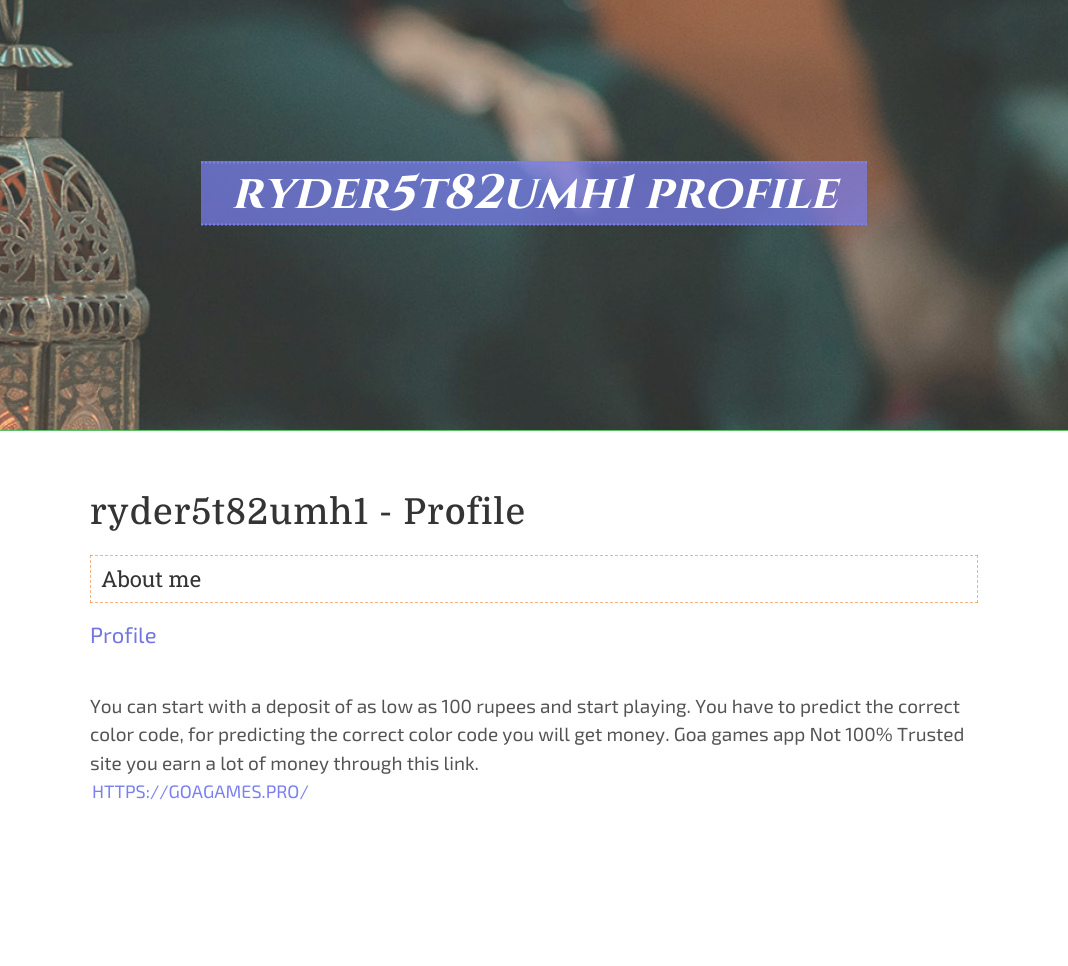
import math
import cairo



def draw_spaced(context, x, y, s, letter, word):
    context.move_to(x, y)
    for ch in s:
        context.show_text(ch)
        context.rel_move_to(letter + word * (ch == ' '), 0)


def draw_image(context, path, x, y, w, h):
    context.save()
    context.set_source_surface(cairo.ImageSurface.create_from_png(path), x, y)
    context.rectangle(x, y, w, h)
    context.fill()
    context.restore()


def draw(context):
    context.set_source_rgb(1, 1, 1)
    context.paint()
    draw_image(context, "images/1.png", 0, 0, 1068, 430)
    context.set_source_rgba(123 / 255, 127 / 255, 241 / 255, 0.7)
    context.rectangle(201, 161, 666, 64)
    context.fill()
    context.new_path()
    context.move_to(201, 162.5)
    context.line_to(867, 162.5)
    context.set_source_rgb(123 / 255, 127 / 255, 241 / 255)
    context.set_dash([2, 2])
    context.stroke()
    context.new_path()
    context.move_to(201, 224.5)
    context.line_to(867, 224.5)
    context.stroke()
    context.set_source_rgb(88 / 255, 191 / 255, 99 / 255)
    context.rectangle(0, 430, 1068, 1)
    context.fill()
    context.new_path()
    context.move_to(90, 555.5)
    context.line_to(978, 555.5)
    context.set_source_rgb(245 / 255, 179 / 255, 131 / 255)
    context.set_line_width(1)
    context.set_dash([3, 2])
    context.stroke()
    context.new_path()
    context.move_to(977.5, 555)
    context.line_to(977.5, 603)
    context.set_source_rgba(239 / 255, 128 / 255, 49 / 255, 0.6)
    context.stroke()
    context.new_path()
    context.move_to(90, 602.5)
    context.line_to(978, 602.5)
    context.stroke()
    context.new_path()
    context.move_to(90.5, 555)
    context.line_to(90.5, 603)
    context.stroke()
    context.select_font_face("Cinzel", cairo.FontSlant.ITALIC, cairo.FontWeight.BOLD)
    context.set_font_size(48)
    context.set_source_rgb(1, 1, 1)
    context.move_to(231, 208)
    context.show_text("ryder5t82umh1 profile")
    context.select_font_face("Domine Medium")
    context.set_font_size(35.75)
    context.set_source_rgb(52 / 255, 52 / 255, 52 / 255)
    draw_spaced(context, 90, 524, "ryder5t82umh1 - Profile", 1, 0)
    context.select_font_face("Roboto Slab")
    context.set_font_size(22)
    context.move_to(101, 587)
    context.show_text("About me")
    context.select_font_face("Exo 2")
    context.set_source_rgb(114 / 255, 118 / 255, 224 / 255)
    context.move_to(90, 643)
    context.show_text("Profile")
    context.set_font_size(19)
    context.set_source_rgb(83 / 255, 83 / 255, 83 / 255)
    context.move_to(90, 713)
    context.show_text("You can start with a deposit of as low as 100 rupees and start playing. You have to predict the correct")
    context.move_to(90, 741)
    context.show_text("color code, for predicting the correct color code you will get money. Goa games app Not 100% Trusted")
    context.move_to(90, 770)
    context.show_text("site you earn a lot of money through this link.")
    context.set_font_size(18)
    context.set_source_rgb(123 / 255, 127 / 255, 241 / 255)
    context.move_to(92, 798)
    context.show_text("HTTPS://GOAGAMES.PRO/")


surface = cairo.ImageSurface(cairo.Format.RGB24, 1068, 966)
context = cairo.Context(surface)
options = cairo.FontOptions()
options.set_hint_metrics(cairo.HintMetrics.OFF)
options.set_hint_style(cairo.HintStyle.NONE)
context.set_font_options(options)
context.set_miter_limit(4)
draw(context)
surface.write_to_png("out.png")
